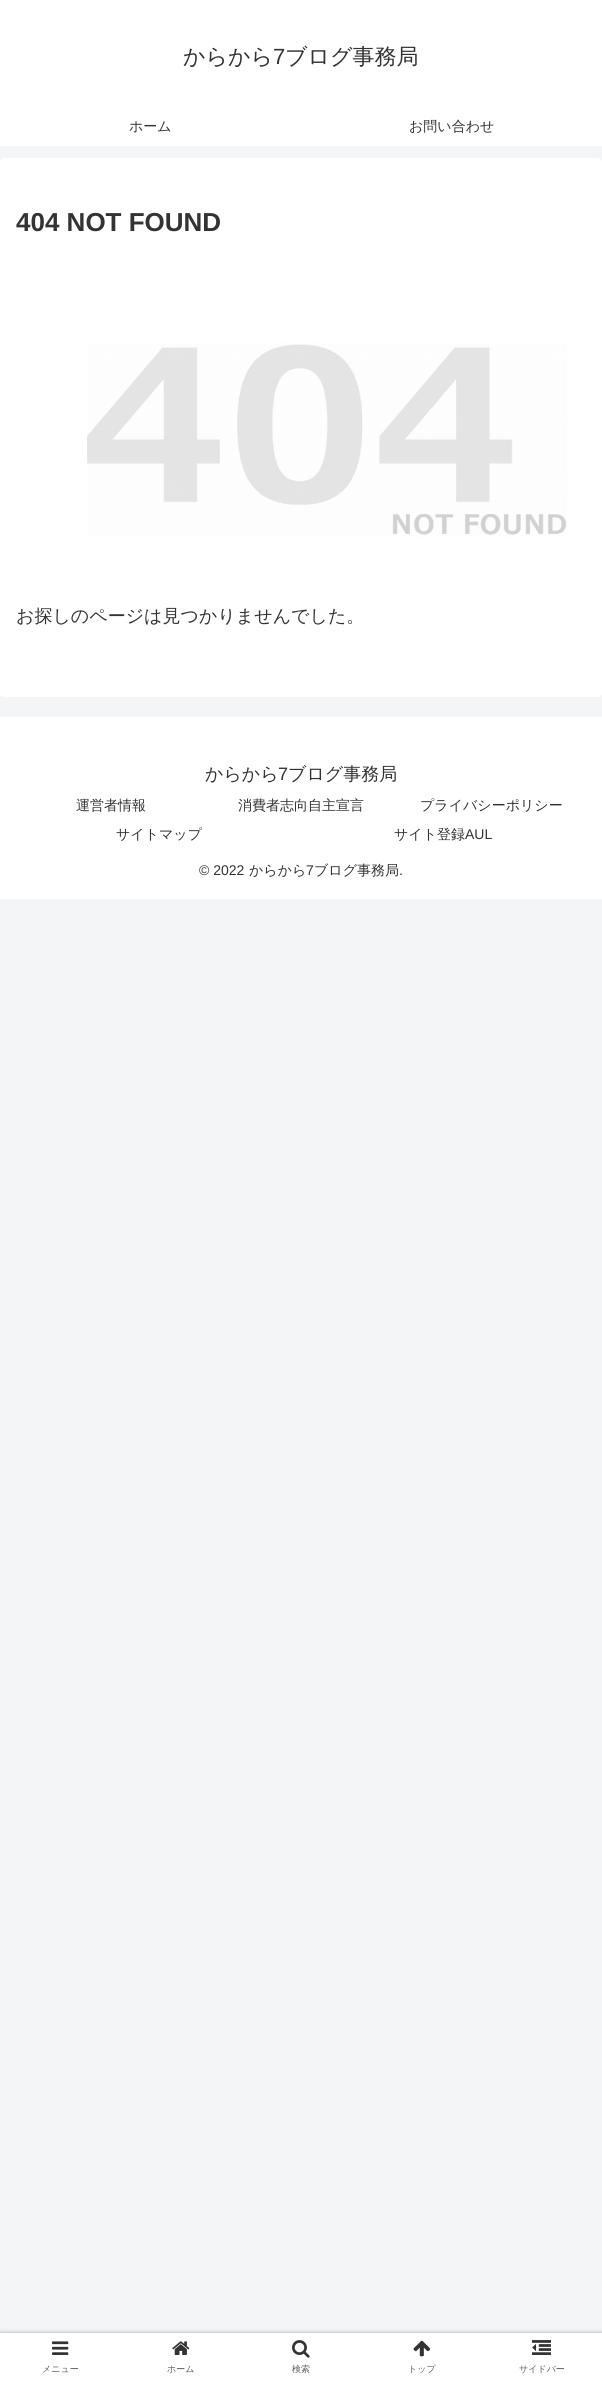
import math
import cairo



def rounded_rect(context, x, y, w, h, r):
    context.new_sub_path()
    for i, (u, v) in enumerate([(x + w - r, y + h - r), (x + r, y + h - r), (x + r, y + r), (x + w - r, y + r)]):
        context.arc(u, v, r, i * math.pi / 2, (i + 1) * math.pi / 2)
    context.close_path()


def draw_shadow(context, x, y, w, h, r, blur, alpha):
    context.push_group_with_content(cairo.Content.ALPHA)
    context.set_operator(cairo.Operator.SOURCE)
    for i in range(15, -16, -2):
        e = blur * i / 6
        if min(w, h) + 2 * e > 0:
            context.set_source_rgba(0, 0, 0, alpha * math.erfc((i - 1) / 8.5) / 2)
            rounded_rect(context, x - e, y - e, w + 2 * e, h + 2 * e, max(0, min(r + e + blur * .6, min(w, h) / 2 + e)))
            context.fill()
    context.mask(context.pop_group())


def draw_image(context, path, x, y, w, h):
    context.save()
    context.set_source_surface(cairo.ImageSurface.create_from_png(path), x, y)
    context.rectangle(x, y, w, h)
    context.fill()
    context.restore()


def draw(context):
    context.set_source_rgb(244 / 255, 245 / 255, 247 / 255)
    context.paint()
    context.set_source_rgb(1, 1, 1)
    context.rectangle(0, 0, 602, 146)
    context.fill()
    rounded_rect(context, 0, 158, 602, 539, 4)
    context.fill()
    draw_image(context, "images/1.png", 87, 343, 480, 194)
    context.rectangle(0, 717, 602, 182)
    context.fill()
    context.set_source_rgb(169 / 255, 169 / 255, 169 / 255)
    draw_shadow(context, 0, 2333, 602, 50, 0, 2.5, 1)
    context.set_source_rgb(1, 1, 1)
    context.rectangle(0, 2333, 602, 50)
    context.fill()
    draw_image(context, "images/2.png", 52, 2341, 17, 14)
    draw_image(context, "images/3.png", 172, 2341, 18, 14)
    draw_image(context, "images/4.png", 292, 2340, 18, 18)
    draw_image(context, "images/5.png", 413, 2340, 17, 17)
    draw_image(context, "images/6.png", 532, 2340, 19, 15)
    context.select_font_face("WenQuanYi Zen Hei Medium")
    context.set_font_size(22)
    context.set_source_rgb(51 / 255, 51 / 255, 51 / 255)
    context.move_to(183, 64)
    context.show_text("からから")
    context.select_font_face("Liberation Sans")
    context.move_to(273, 64)
    context.show_text("7")
    context.select_font_face("WenQuanYi Zen Hei Medium")
    context.move_to(285, 64)
    context.show_text("ブログ事務局")
    context.set_font_size(14)
    context.move_to(129, 131)
    context.show_text("ホーム")
    context.move_to(409, 131)
    context.show_text("お問い合わせ")
    context.select_font_face("Liberation Sans", cairo.FontSlant.NORMAL, cairo.FontWeight.BOLD)
    context.set_font_size(26)
    context.move_to(16, 231)
    context.show_text("404 NOT FOUND")
    context.select_font_face("WenQuanYi Zen Hei Medium")
    context.set_font_size(18)
    context.move_to(16, 622)
    context.show_text("お探しのページは見つかりませんでした。")
    context.move_to(205, 780)
    context.show_text("からから")
    context.select_font_face("Liberation Sans")
    context.move_to(278, 780)
    context.show_text("7")
    context.select_font_face("WenQuanYi Zen Hei Medium")
    context.move_to(288, 780)
    context.show_text("ブログ事務局")
    context.set_font_size(14)
    context.move_to(76, 810)
    context.show_text("運営者情報")
    context.move_to(238, 810)
    context.show_text("消費者志向自主宣言")
    context.move_to(420, 810)
    context.show_text("プライバシーポリシー")
    context.move_to(116, 839)
    context.show_text("サイトマップ")
    context.move_to(394, 839)
    context.show_text("サイト登録")
    context.select_font_face("Liberation Sans")
    context.move_to(465, 839)
    context.show_text("AUL")
    context.move_to(199, 875)
    context.show_text("© 2022")
    context.select_font_face("WenQuanYi Zen Hei Medium")
    context.move_to(249, 875)
    context.show_text("からから")
    context.select_font_face("Liberation Sans")
    context.move_to(306, 875)
    context.show_text("7")
    context.select_font_face("WenQuanYi Zen Hei Medium")
    context.move_to(314, 875)
    context.show_text("ブログ事務局")
    context.select_font_face("Liberation Sans")
    context.move_to(399, 875)
    context.show_text(".")
    context.select_font_face("WenQuanYi Zen Hei Medium")
    context.set_font_size(9)
    context.set_source_rgb(92 / 255, 92 / 255, 92 / 255)
    context.move_to(42, 2372)
    context.show_text("メニュー")
    context.move_to(167, 2372)
    context.show_text("ホーム")
    context.move_to(292, 2372)
    context.show_text("検索")
    context.move_to(408, 2372)
    context.show_text("トップ")
    context.move_to(519, 2372)
    context.show_text("サイドバー")


surface = cairo.ImageSurface(cairo.Format.RGB24, 602, 2383)
context = cairo.Context(surface)
options = cairo.FontOptions()
options.set_hint_metrics(cairo.HintMetrics.OFF)
options.set_hint_style(cairo.HintStyle.NONE)
context.set_font_options(options)
context.set_miter_limit(4)
draw(context)
surface.write_to_png("out.png")
